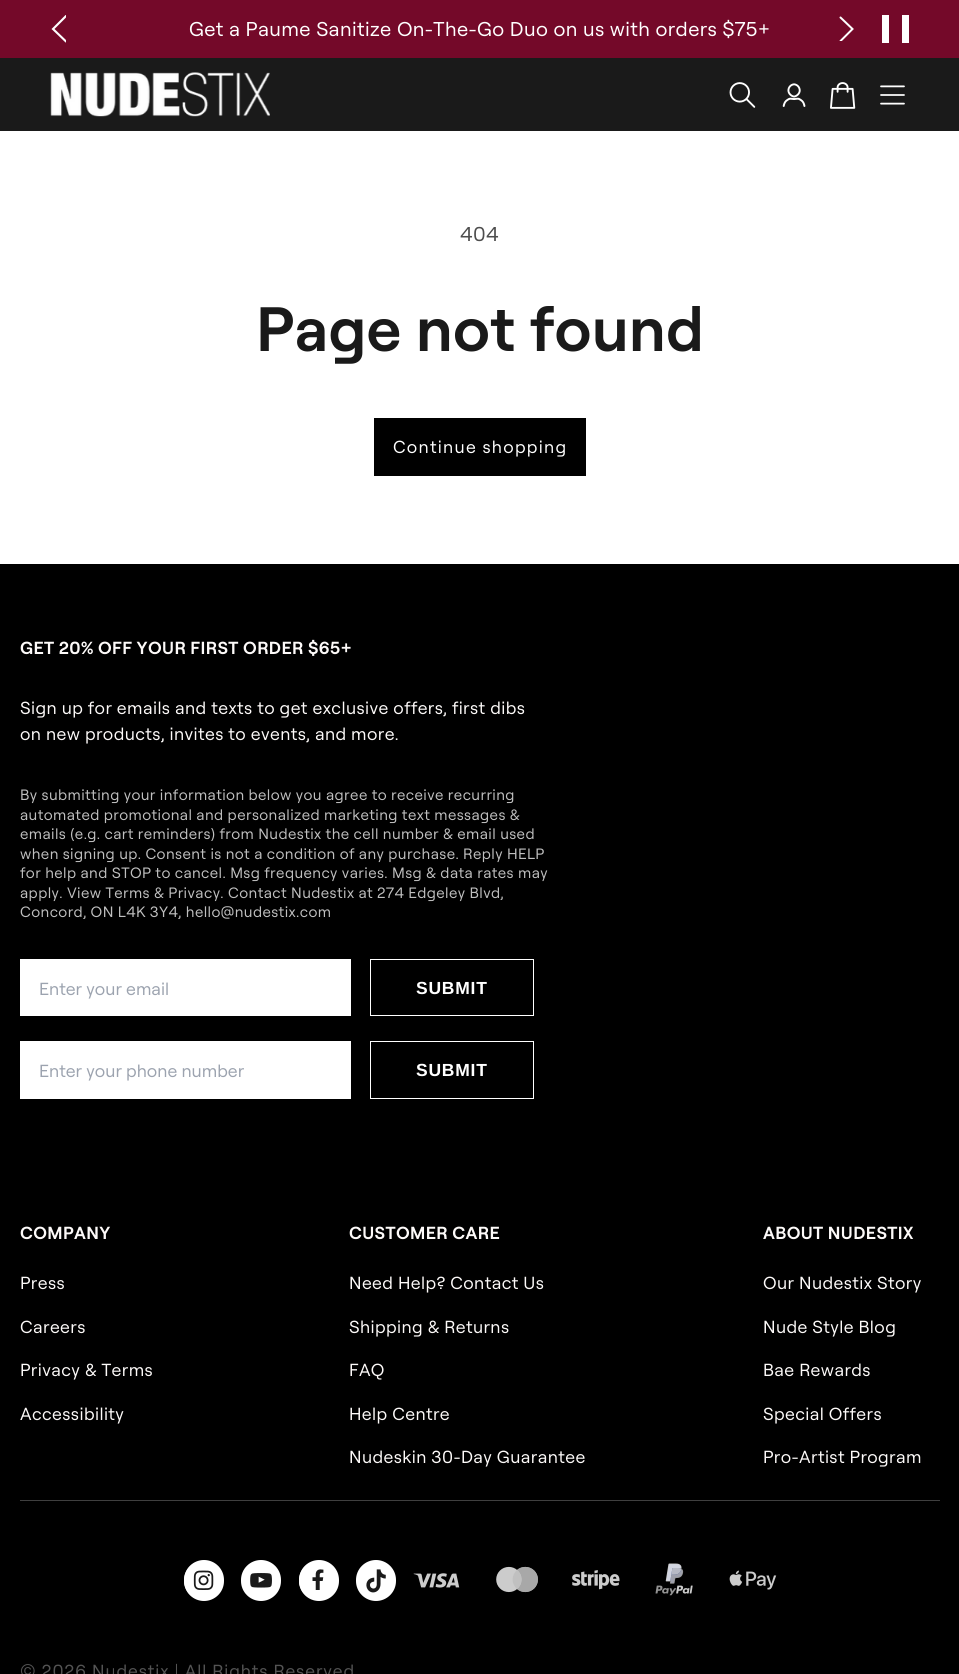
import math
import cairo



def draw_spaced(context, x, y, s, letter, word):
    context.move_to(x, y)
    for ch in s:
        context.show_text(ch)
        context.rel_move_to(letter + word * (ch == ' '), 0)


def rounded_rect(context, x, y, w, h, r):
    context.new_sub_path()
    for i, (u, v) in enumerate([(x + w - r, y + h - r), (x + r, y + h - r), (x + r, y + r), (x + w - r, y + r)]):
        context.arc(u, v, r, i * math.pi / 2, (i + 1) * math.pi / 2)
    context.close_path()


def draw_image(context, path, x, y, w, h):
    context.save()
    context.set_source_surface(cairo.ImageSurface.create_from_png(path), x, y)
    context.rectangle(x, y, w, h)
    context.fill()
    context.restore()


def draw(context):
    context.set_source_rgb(1, 1, 1)
    context.paint()
    context.set_source_rgb(116 / 255, 9 / 255, 41 / 255)
    context.rectangle(0, 0, 959, 58)
    context.fill()
    context.save()
    context.rectangle(51, 15, 15, 28)
    context.clip()
    context.new_path()
    context.move_to(66, 16)
    context.line_to(53, 29)
    context.line_to(66, 41.5)
    context.set_source_rgb(1, 1, 1)
    context.set_line_width(2.1)
    context.set_line_cap(cairo.LineCap.ROUND)
    context.stroke()
    context.restore()
    context.save()
    context.rectangle(839, 16, 15, 25)
    context.clip()
    context.new_path()
    context.move_to(840.5, 17.5)
    context.line_to(852.5, 29)
    context.line_to(840.5, 41)
    context.set_source_rgb(1, 1, 1)
    context.set_line_cap(cairo.LineCap.ROUND)
    context.stroke()
    context.restore()
    context.set_source_rgb(1, 1, 1)
    context.rectangle(882, 15, 7, 28)
    context.fill()
    context.rectangle(902, 15, 7, 28)
    context.fill()
    context.set_source_rgb(26 / 255, 26 / 255, 26 / 255)
    context.rectangle(0, 58, 959, 73)
    context.fill()
    draw_image(context, "images/1.png", 50, 72, 220, 45)
    draw_image(context, "images/2.png", 729, 82, 27, 26)
    draw_image(context, "images/3.png", 782, 83, 24, 24)
    draw_image(context, "images/4.png", 830, 82, 26, 27)
    draw_image(context, "images/5.png", 880, 85, 25, 20)
    context.set_source_rgb(0, 0, 0)
    context.rectangle(374, 418, 212, 58)
    context.fill()
    context.rectangle(0, 564, 959, 1110)
    context.fill()
    context.set_source_rgb(1, 1, 1)
    context.rectangle(20, 959, 331, 57)
    context.fill()
    context.rectangle(370.5, 959.5, 163, 56)
    context.set_line_width(1)
    context.stroke()
    context.rectangle(20, 1041, 331, 58)
    context.fill()
    context.rectangle(370.5, 1041.5, 163, 57)
    context.stroke()
    context.set_source_rgb(63 / 255, 63 / 255, 63 / 255)
    context.rectangle(20, 1500, 920, 1)
    context.fill()
    context.set_source_rgb(1, 1, 1)
    rounded_rect(context, 184, 1560, 40, 41, 20)
    context.fill()
    draw_image(context, "images/6.png", 184, 1563, 30, 35)
    rounded_rect(context, 241, 1560, 40, 41, 20)
    context.fill()
    draw_image(context, "images/7.png", 250, 1573, 22, 15)
    rounded_rect(context, 299, 1560, 40, 41, 20)
    context.fill()
    draw_image(context, "images/8.png", 299, 1563, 25, 35)
    rounded_rect(context, 356, 1560, 40, 41, 20)
    context.fill()
    draw_image(context, "images/9.png", 366, 1569, 20, 24)
    draw_image(context, "images/10.png", 413, 1573, 47, 15)
    draw_image(context, "images/11.png", 496, 1566, 42, 27)
    draw_image(context, "images/12.png", 572, 1570, 48, 20)
    draw_image(context, "images/13.png", 655, 1563, 38, 33)
    draw_image(context, "images/14.png", 729, 1570, 48, 20)
    context.select_font_face("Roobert")
    context.set_font_size(20)
    draw_spaced(context, 189, 36, "Get a Paume Sanitize On-The-Go Duo on us with orders $75+", 0.4, 0)
    context.set_source_rgb(77 / 255, 77 / 255, 77 / 255)
    draw_spaced(context, 460, 241, "404", 0.4, 0)
    context.select_font_face("Roobert SemiBold")
    context.set_font_size(62.5)
    context.set_source_rgb(26 / 255, 26 / 255, 26 / 255)
    draw_spaced(context, 256, 351, "Page not found", 0.4, 0)
    context.select_font_face("Roobert")
    context.set_font_size(17.5)
    context.set_source_rgb(1, 1, 1)
    draw_spaced(context, 393, 453, "Continue shopping", 1.25, 0)
    context.select_font_face("Roobert SemiBold")
    context.set_source_rgb(253 / 255, 250 / 255, 249 / 255)
    draw_spaced(context, 20, 654, "GET 20% OFF YOUR FIRST ORDER $65+", 0.4, 0)
    context.select_font_face("Roobert")
    draw_spaced(context, 20, 714, "Sign up for emails and texts to get exclusive offers, first dibs", 0.4, 0)
    draw_spaced(context, 20, 740, "on new products, invites to events, and more.", 0.4, 0)
    context.set_font_size(15)
    context.set_source_rgb(191 / 255, 191 / 255, 191 / 255)
    draw_spaced(context, 20, 800, "By submitting your information below you agree to receive recurring", 0.4, 0)
    draw_spaced(context, 20, 820, "automated promotional and personalized marketing text messages &", 0.4, 0)
    draw_spaced(context, 20, 839, "emails (e.g. cart reminders) from Nudestix the cell number & email used", 0.4, 0)
    draw_spaced(context, 20, 859, "when signing up. Consent is not a condition of any purchase. Reply HELP", 0.4, 0)
    draw_spaced(context, 20, 878, "for help and STOP to cancel. Msg frequency varies. Msg & data rates may", 0.4, 0)
    draw_spaced(context, 20, 898, "apply. View Terms & Privacy. Contact Nudestix at 274 Edgeley Blvd,", 0.4, 0)
    draw_spaced(context, 20, 917, "Concord, ON L4K 3Y4, hello@nudestix.com", 0.4, 0)
    context.set_font_size(17.5)
    context.set_source_rgb(156 / 255, 163 / 255, 175 / 255)
    context.move_to(39, 995)
    context.show_text("Enter your email")
    context.select_font_face("Liberation Sans", cairo.FontSlant.NORMAL, cairo.FontWeight.BOLD)
    context.set_source_rgb(1, 1, 1)
    draw_spaced(context, 416, 994, "SUBMIT", 0.75, 0)
    context.select_font_face("Roobert")
    context.set_source_rgb(156 / 255, 163 / 255, 175 / 255)
    context.move_to(39, 1077)
    context.show_text("Enter your phone number")
    context.select_font_face("Liberation Sans", cairo.FontSlant.NORMAL, cairo.FontWeight.BOLD)
    context.set_source_rgb(1, 1, 1)
    draw_spaced(context, 416, 1076, "SUBMIT", 0.75, 0)
    context.select_font_face("Roobert SemiBold")
    context.set_source_rgb(253 / 255, 250 / 255, 249 / 255)
    draw_spaced(context, 20, 1239, "COMPANY", 0.4, 0)
    context.select_font_face("Roobert")
    draw_spaced(context, 20, 1289, "Press", 0.4, 0)
    draw_spaced(context, 20, 1333, "Careers", 0.4, 0)
    draw_spaced(context, 20, 1376, "Privacy & Terms", 0.4, 0)
    draw_spaced(context, 20, 1420, "Accessibility", 0.4, 0)
    context.select_font_face("Roobert SemiBold")
    draw_spaced(context, 349, 1239, "CUSTOMER CARE", 0.4, 0)
    context.select_font_face("Roobert")
    draw_spaced(context, 349, 1289, "Need Help? Contact Us", 0.4, 0)
    draw_spaced(context, 349, 1333, "Shipping & Returns", 0.4, 0)
    draw_spaced(context, 349, 1376, "FAQ", 0.4, 0)
    draw_spaced(context, 349, 1420, "Help Centre", 0.4, 0)
    draw_spaced(context, 349, 1463, "Nudeskin 30-Day Guarantee", 0.4, 0)
    context.select_font_face("Roobert SemiBold")
    draw_spaced(context, 763, 1239, "ABOUT NUDESTIX", 0.4, 0)
    context.select_font_face("Roobert")
    draw_spaced(context, 763, 1289, "Our Nudestix Story", 0.4, 0)
    draw_spaced(context, 763, 1333, "Nude Style Blog", 0.4, 0)
    draw_spaced(context, 763, 1376, "Bae Rewards", 0.4, 0)
    draw_spaced(context, 763, 1420, "Special Offers", 0.4, 0)
    draw_spaced(context, 763, 1463, "Pro-Artist Program", 0.4, 0)
    context.set_source_rgb(84 / 255, 84 / 255, 84 / 255)
    draw_spaced(context, 20, 1677, "© 2026 Nudestix | All Rights Reserved", 0.9, 0)


surface = cairo.ImageSurface(cairo.Format.RGB24, 959, 1674)
context = cairo.Context(surface)
options = cairo.FontOptions()
options.set_hint_metrics(cairo.HintMetrics.OFF)
options.set_hint_style(cairo.HintStyle.NONE)
context.set_font_options(options)
context.set_miter_limit(4)
draw(context)
surface.write_to_png("out.png")
